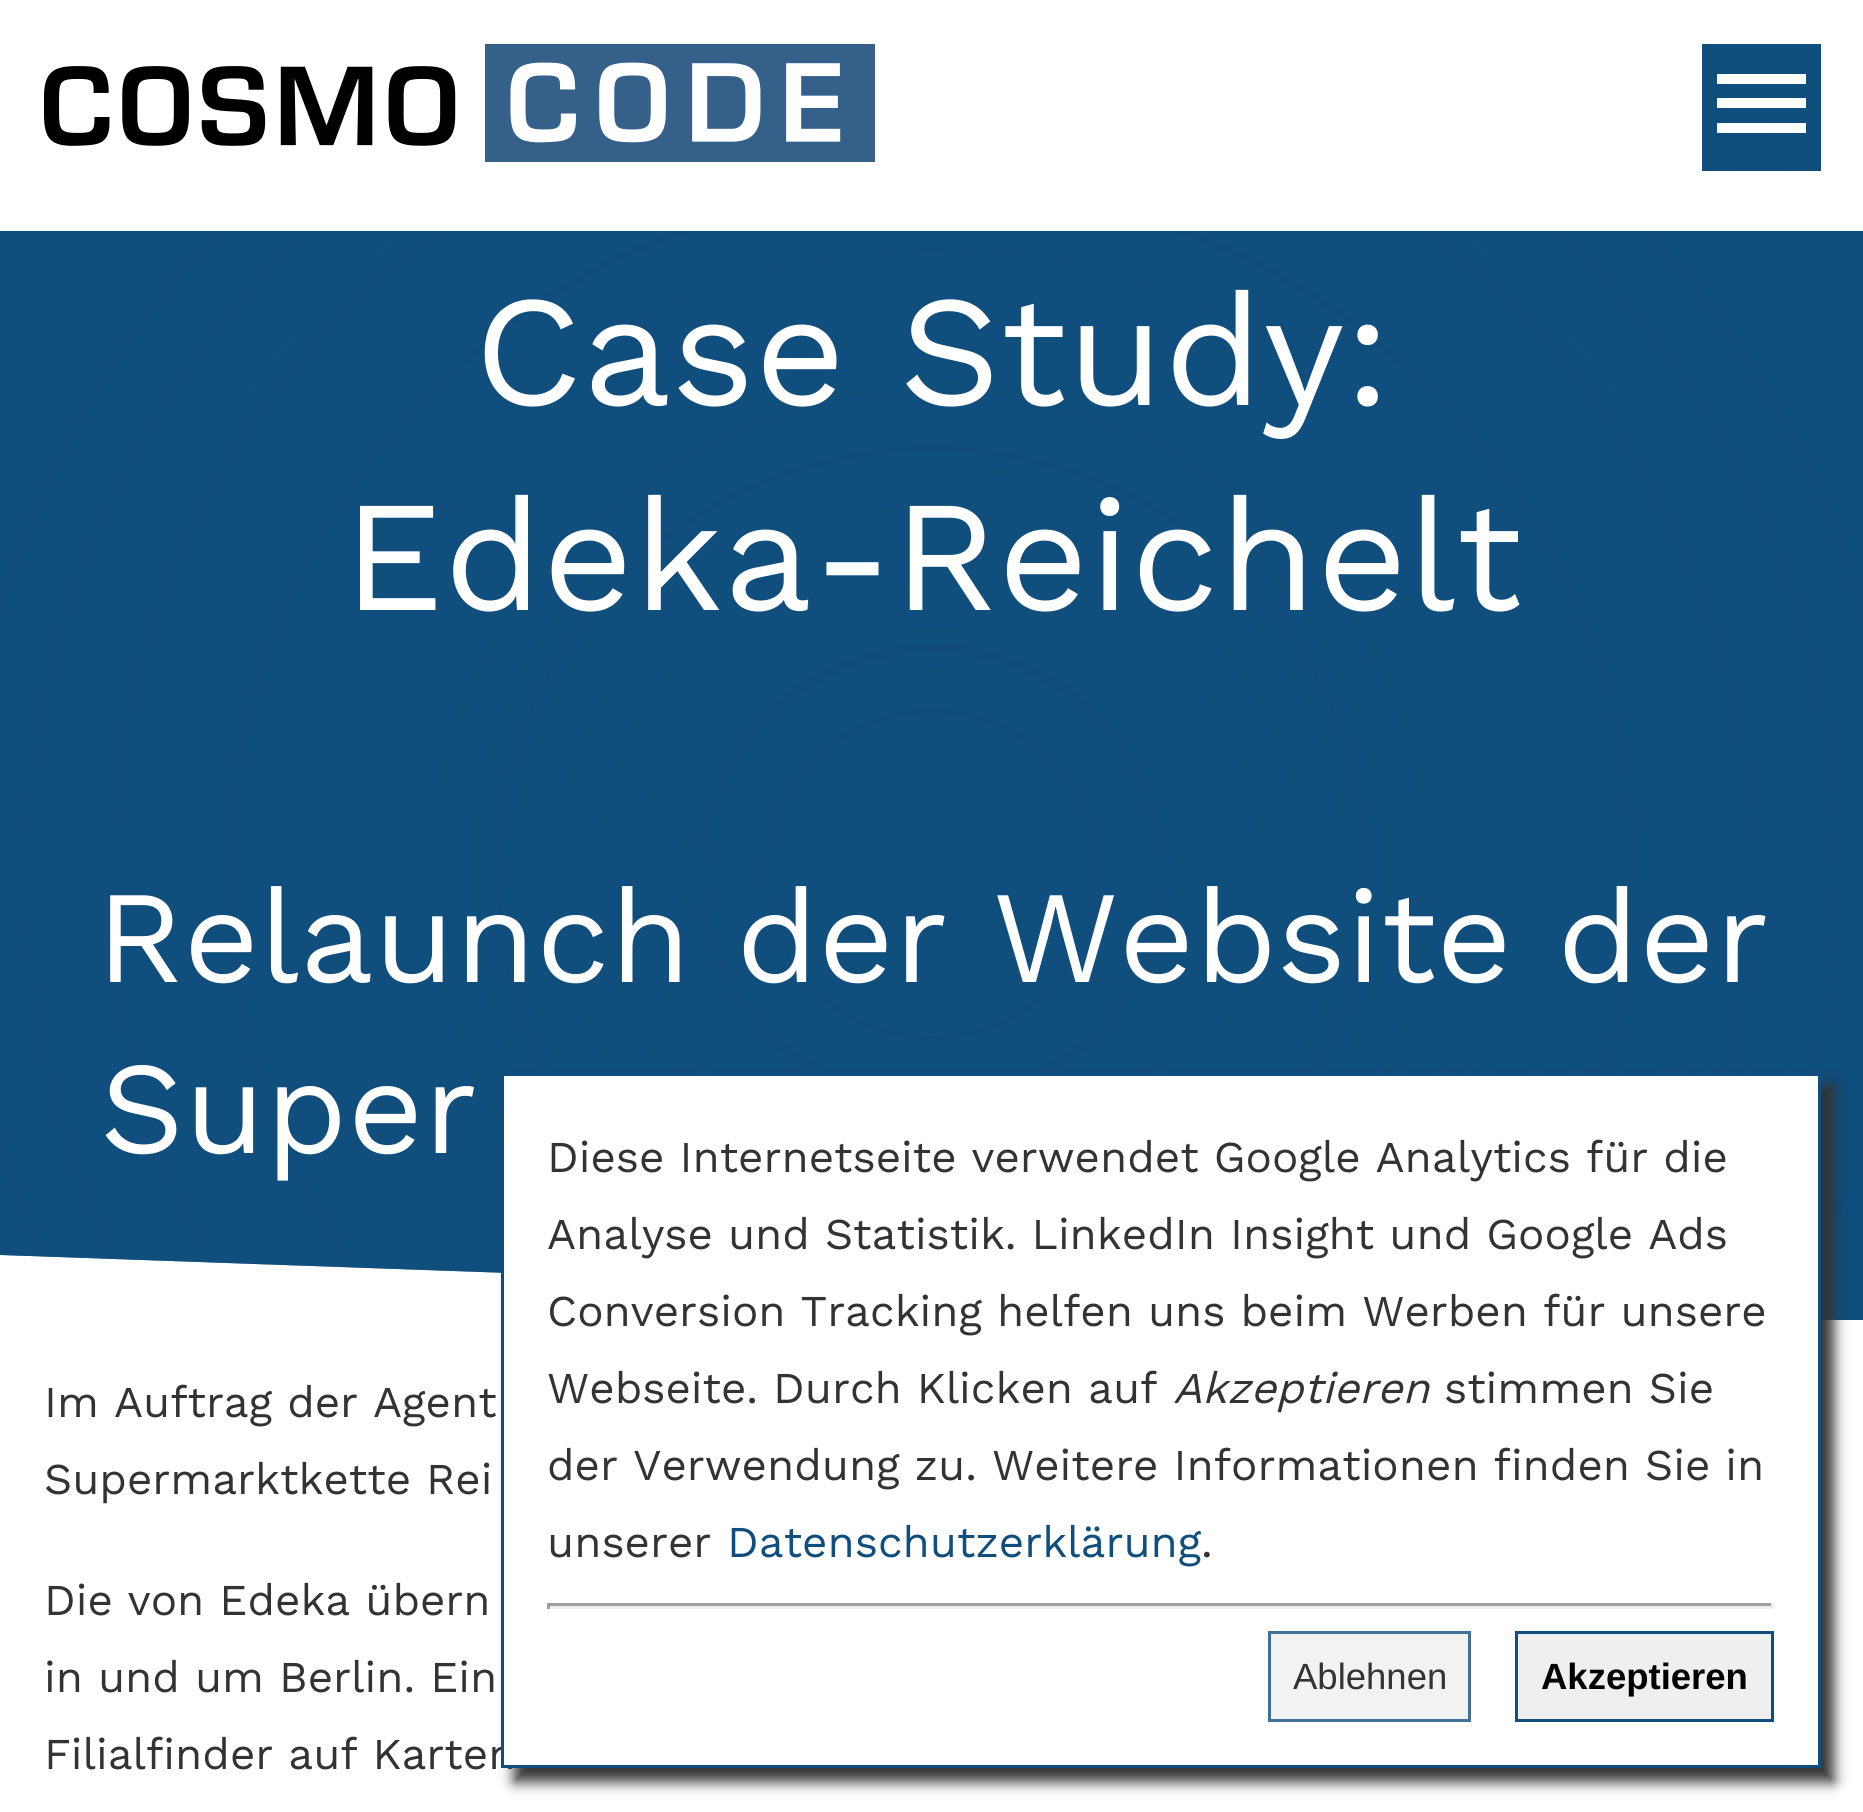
import math
import cairo



def rounded_rect(context, x, y, w, h, r):
    context.new_sub_path()
    for i, (u, v) in enumerate([(x + w - r, y + h - r), (x + r, y + h - r), (x + r, y + r), (x + w - r, y + r)]):
        context.arc(u, v, r, i * math.pi / 2, (i + 1) * math.pi / 2)
    context.close_path()


def draw_shadow(context, x, y, w, h, r, blur, alpha):
    context.push_group_with_content(cairo.Content.ALPHA)
    context.set_operator(cairo.Operator.SOURCE)
    for i in range(15, -16, -2):
        e = blur * i / 6
        if min(w, h) + 2 * e > 0:
            context.set_source_rgba(0, 0, 0, alpha * math.erfc((i - 1) / 8.5) / 2)
            rounded_rect(context, x - e, y - e, w + 2 * e, h + 2 * e, max(0, min(r + e + blur * .6, min(w, h) / 2 + e)))
            context.fill()
    context.mask(context.pop_group())


def draw_image(context, path, x, y, w, h):
    context.save()
    context.set_source_surface(cairo.ImageSurface.create_from_png(path), x, y)
    context.rectangle(x, y, w, h)
    context.fill()
    context.restore()


def draw(context):
    context.set_source_rgb(1, 1, 1)
    context.paint()
    context.save()
    context.rectangle(0, 118, 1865, 1202)
    context.clip()
    context.set_source_rgb(16 / 255, 78 / 255, 125 / 255)
    context.new_path()
    context.move_to(0, 53)
    context.line_to(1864, 119)
    context.line_to(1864, 1321)
    context.line_to(0, 1255)
    context.close_path()
    context.fill()
    gradient = cairo.RadialGradient(0, 0, 0, 0, 0, 1)
    gradient.set_matrix(cairo.Matrix(1 / 1319, 0, 0, 1 / 1281, -1 * 932 / 1319, -1 * 874 / 1281))
    gradient.add_color_stop_rgba(0, 16 / 255, 78 / 255, 125 / 255, 0.5)
    gradient.add_color_stop_rgba(1, 16 / 255, 78 / 255, 125 / 255, 0.75)
    context.set_source(gradient)
    context.new_path()
    context.move_to(0, 53)
    context.line_to(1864, 119)
    context.line_to(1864, 1321)
    context.line_to(0, 1255)
    context.close_path()
    context.fill()
    context.restore()
    context.set_source_rgb(1, 1, 1)
    context.rectangle(0, 118, 1863, 113)
    context.fill()
    draw_image(context, "images/1.png", 44, 44, 831, 118)
    context.set_source_rgb(16 / 255, 78 / 255, 125 / 255)
    context.rectangle(1702, 44, 119, 127)
    context.fill()
    context.set_source_rgb(1, 1, 1)
    context.new_path()
    context.move_to(1717, 74)
    context.line_to(1806, 74)
    context.line_to(1806, 84)
    context.line_to(1717, 84)
    context.line_to(1717, 74)
    context.move_to(1717, 98)
    context.line_to(1806, 98)
    context.line_to(1806, 108)
    context.line_to(1717, 108)
    context.line_to(1717, 98)
    context.move_to(1717, 123)
    context.line_to(1806, 123)
    context.line_to(1806, 133)
    context.line_to(1717, 133)
    context.close_path()
    context.fill()
    context.set_source_rgb(51 / 255, 51 / 255, 51 / 255)
    draw_shadow(context, 514, 1086, 1320, 696, 0, 7, 1)
    context.select_font_face("Work Sans")
    context.set_font_size(157.75)
    context.set_source_rgb(1, 1, 1)
    context.move_to(474, 405)
    context.show_text("Case Study:")
    context.move_to(343, 610)
    context.show_text("Edeka-Reichelt")
    context.set_font_size(131.4)
    context.move_to(96, 982)
    context.show_text("Relaunch der Website der")
    context.move_to(100, 1153)
    context.show_text("Super")
    context.set_font_size(44)
    context.set_source_rgb(51 / 255, 51 / 255, 51 / 255)
    context.move_to(44, 1417)
    context.show_text("Im Auftrag der Agent")
    context.move_to(44, 1494)
    context.show_text("Supermarktkette Rei")
    context.move_to(44, 1615)
    context.show_text("Die von Edeka übern")
    context.move_to(44, 1692)
    context.show_text("in und um Berlin. Ein")
    context.move_to(44, 1769)
    context.show_text("Filialfinder auf Karten")
    context.set_source_rgb(1, 1, 1)
    context.rectangle(502.5, 1074.5, 1317, 692)
    context.fill_preserve()
    context.set_source_rgb(16 / 255, 78 / 255, 125 / 255)
    context.set_line_width(3)
    context.stroke()
    context.set_source_rgb(51 / 255, 51 / 255, 51 / 255)
    context.move_to(547, 1172)
    context.show_text("Diese Internetseite verwendet Google Analytics für die")
    context.move_to(547, 1249)
    context.show_text("Analyse und Statistik. LinkedIn Insight und Google Ads")
    context.move_to(547, 1326)
    context.show_text("Conversion Tracking helfen uns beim Werben für unsere")
    context.move_to(547, 1403)
    context.show_text("Webseite. Durch Klicken auf")
    context.select_font_face("Work Sans", cairo.FontSlant.ITALIC)
    context.move_to(1173, 1403)
    context.show_text("Akzeptieren")
    context.select_font_face("Work Sans")
    context.move_to(1444, 1403)
    context.show_text("stimmen Sie")
    context.move_to(547, 1480)
    context.show_text("der Verwendung zu. Weitere Informationen finden Sie in")
    context.move_to(547, 1557)
    context.show_text("unserer")
    context.set_source_rgb(16 / 255, 78 / 255, 125 / 255)
    context.move_to(727, 1557)
    context.show_text("Datenschutzerklärung")
    context.set_source_rgb(51 / 255, 51 / 255, 51 / 255)
    context.move_to(1201, 1557)
    context.show_text(".")
    context.set_source_rgb(159 / 255, 159 / 255, 159 / 255)
    context.rectangle(547, 1603, 1227, 3)
    context.fill()
    context.set_source_rgb(238 / 255, 238 / 255, 238 / 255)
    context.rectangle(1771, 1603, 3, 6)
    context.fill()
    context.rectangle(547, 1606, 1227, 3)
    context.fill()
    context.set_source_rgb(159 / 255, 159 / 255, 159 / 255)
    context.rectangle(547, 1603, 3, 6)
    context.fill()
    context.set_source_rgb(242 / 255, 242 / 255, 242 / 255)
    context.rectangle(1269.5, 1632.5, 200, 88)
    context.fill_preserve()
    context.set_source_rgb(64 / 255, 113 / 255, 151 / 255)
    context.stroke()
    context.select_font_face("Liberation Sans")
    context.set_font_size(36.5)
    context.set_source_rgb(51 / 255, 51 / 255, 51 / 255)
    context.move_to(1293, 1689)
    context.show_text("Ablehnen")
    context.set_source_rgb(239 / 255, 239 / 255, 239 / 255)
    context.rectangle(1516.5, 1632.5, 256, 88)
    context.fill_preserve()
    context.set_source_rgb(16 / 255, 78 / 255, 125 / 255)
    context.stroke()
    context.select_font_face("Liberation Sans", cairo.FontSlant.NORMAL, cairo.FontWeight.BOLD)
    context.set_source_rgb(0, 0, 0)
    context.move_to(1541, 1689)
    context.show_text("Akzeptieren")


surface = cairo.ImageSurface(cairo.Format.RGB24, 1863, 1812)
context = cairo.Context(surface)
options = cairo.FontOptions()
options.set_hint_metrics(cairo.HintMetrics.OFF)
options.set_hint_style(cairo.HintStyle.NONE)
context.set_font_options(options)
context.set_miter_limit(4)
draw(context)
surface.write_to_png("out.png")
